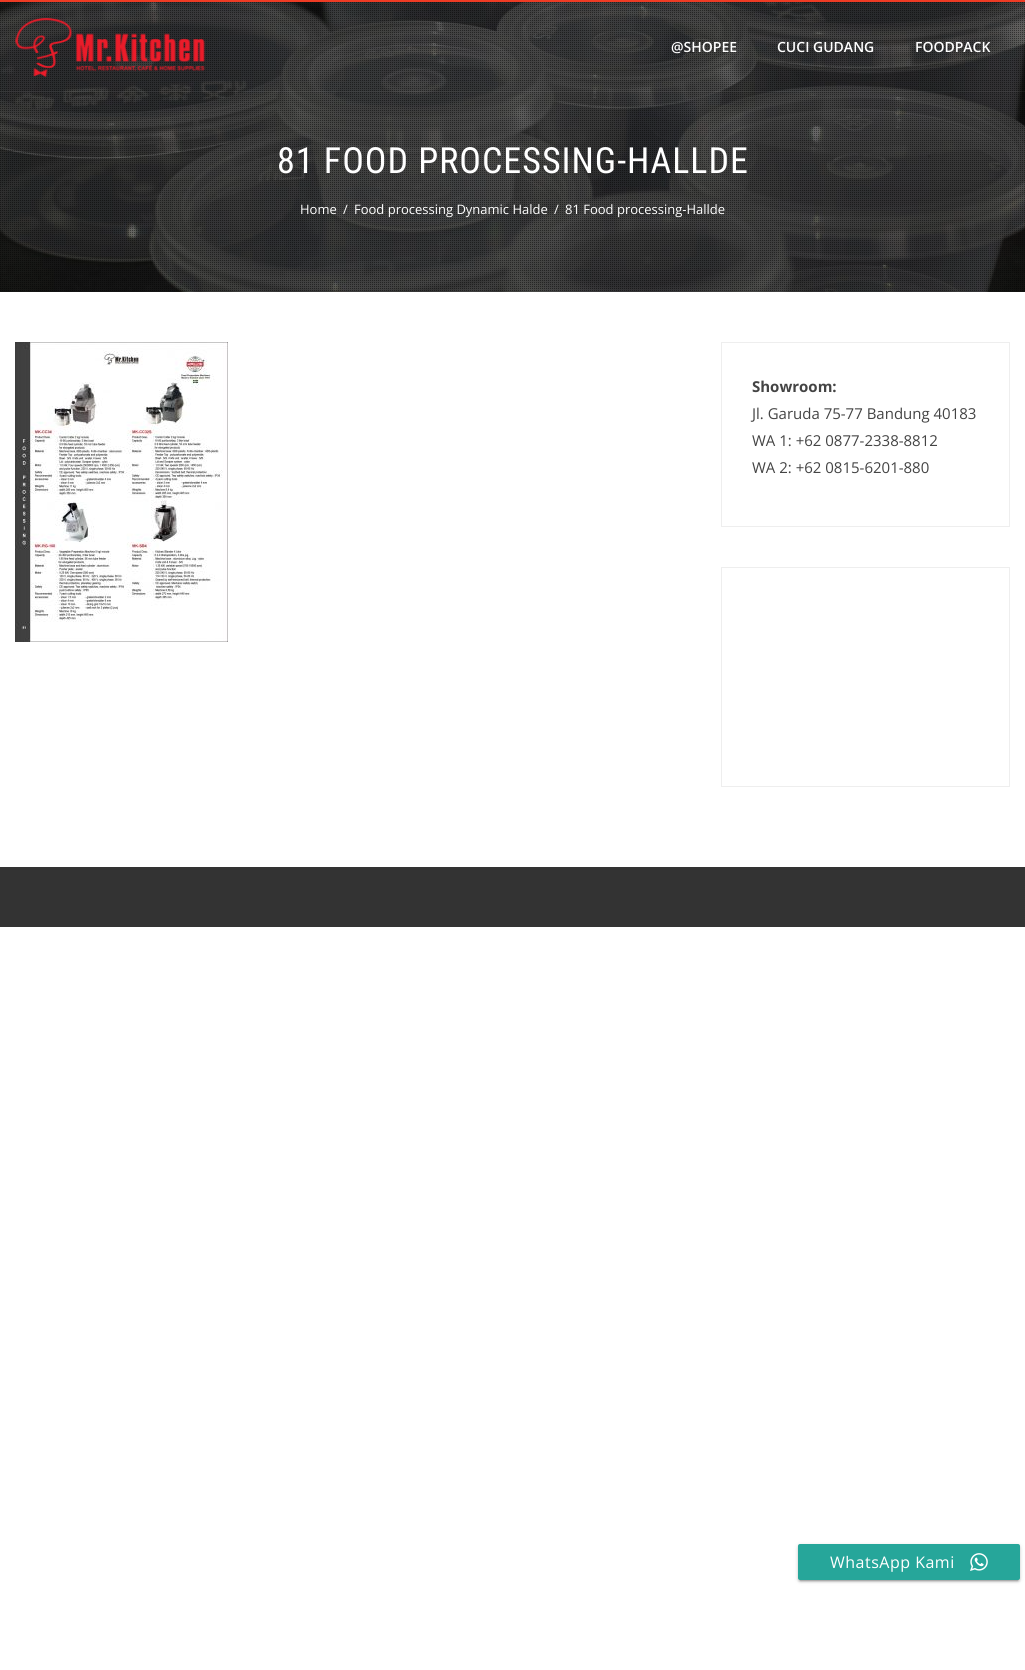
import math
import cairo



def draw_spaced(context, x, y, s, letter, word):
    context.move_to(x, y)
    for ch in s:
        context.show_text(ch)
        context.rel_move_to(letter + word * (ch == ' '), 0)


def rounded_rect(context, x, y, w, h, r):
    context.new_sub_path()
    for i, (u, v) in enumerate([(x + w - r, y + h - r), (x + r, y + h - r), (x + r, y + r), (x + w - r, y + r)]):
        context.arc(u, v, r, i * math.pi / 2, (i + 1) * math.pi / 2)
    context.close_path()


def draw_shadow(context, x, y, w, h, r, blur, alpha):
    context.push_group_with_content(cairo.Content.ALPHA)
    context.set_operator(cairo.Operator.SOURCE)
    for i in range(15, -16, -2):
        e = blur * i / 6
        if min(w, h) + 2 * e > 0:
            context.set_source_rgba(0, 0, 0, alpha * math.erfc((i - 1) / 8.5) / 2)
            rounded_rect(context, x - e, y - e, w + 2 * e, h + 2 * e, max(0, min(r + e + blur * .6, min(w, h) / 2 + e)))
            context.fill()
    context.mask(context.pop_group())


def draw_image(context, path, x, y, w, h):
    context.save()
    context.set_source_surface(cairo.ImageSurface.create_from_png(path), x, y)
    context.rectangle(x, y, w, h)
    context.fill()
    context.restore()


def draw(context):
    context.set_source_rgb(1, 1, 1)
    context.paint()
    context.set_source_rgb(238 / 255, 59 / 255, 36 / 255)
    context.rectangle(0, 0, 1025, 2)
    context.fill()
    draw_image(context, "images/2.png", 0, 2, 1025, 290)
    draw_image(context, "images/3.png", 0, 2, 1025, 290)
    context.set_source_rgba(1, 1, 1, 0.05)
    context.rectangle(0, 91, 1025, 1)
    context.fill()
    draw_image(context, "images/1.png", 15, 18, 190, 59)
    draw_image(context, "images/4.png", 15, 342, 213, 300)
    context.rectangle(721.5, 342.5, 288, 184)
    context.set_source_rgb(238 / 255, 238 / 255, 238 / 255)
    context.set_line_width(1)
    context.stroke()
    context.rectangle(721.5, 567.5, 288, 219)
    context.stroke()
    context.set_source_rgb(51 / 255, 51 / 255, 51 / 255)
    context.rectangle(0, 867, 1025, 60)
    context.fill()
    context.set_source_rgb(0, 0, 0)
    draw_shadow(context, 800, 1549, 218, 32, 0, 0.5, 0.2)
    draw_shadow(context, 798, 1545, 222, 36, 2, 2.5, 0.12)
    draw_shadow(context, 798, 1546, 222, 36, 2, 1, 0.14)
    context.set_source_rgb(38 / 255, 166 / 255, 154 / 255)
    rounded_rect(context, 798, 1544, 222, 36, 2)
    context.fill()
    draw_image(context, "images/5.png", 970, 1553, 18, 18)
    context.select_font_face("Open Sans SemiBold")
    context.set_font_size(14)
    context.set_source_rgb(1, 1, 1)
    context.move_to(671, 52)
    context.show_text("@SHOPEE")
    context.move_to(777, 52)
    context.show_text("CUCI GUDANG")
    context.move_to(915, 52)
    context.show_text("FOODPACK")
    context.select_font_face("Roboto Condensed")
    context.set_font_size(36)
    draw_spaced(context, 277, 173, "81 FOOD PROCESSING-HALLDE", 1, 0)
    context.select_font_face("Open Sans")
    context.set_font_size(13)
    context.move_to(300, 214)
    context.show_text("Home")
    context.move_to(343, 214)
    context.show_text("/")
    context.move_to(354, 214)
    context.show_text("Food processing Dynamic Halde")
    context.move_to(554, 214)
    context.show_text("/")
    context.move_to(565, 214)
    context.show_text("81 Food processing-Hallde")
    context.select_font_face("Open Sans", cairo.FontSlant.NORMAL, cairo.FontWeight.BOLD)
    context.set_font_size(15)
    context.set_source_rgb(68 / 255, 68 / 255, 68 / 255)
    context.move_to(752, 392)
    context.show_text("Showroom:")
    context.select_font_face("Open Sans")
    context.move_to(752, 419)
    context.show_text("Jl. Garuda 75-77 Bandung 40183")
    context.move_to(752, 446)
    context.show_text("WA 1: +62 0877-2338-8812")
    context.move_to(752, 473)
    context.show_text("WA 2: +62 0815-6201-880")
    context.set_font_size(16)
    context.set_source_rgb(1, 1, 1)
    draw_spaced(context, 830, 1568, "WhatsApp Kami", 0.5, 0)


surface = cairo.ImageSurface(cairo.Format.RGB24, 1025, 1670)
context = cairo.Context(surface)
options = cairo.FontOptions()
options.set_hint_metrics(cairo.HintMetrics.OFF)
options.set_hint_style(cairo.HintStyle.NONE)
context.set_font_options(options)
context.set_miter_limit(4)
draw(context)
surface.write_to_png("out.png")
